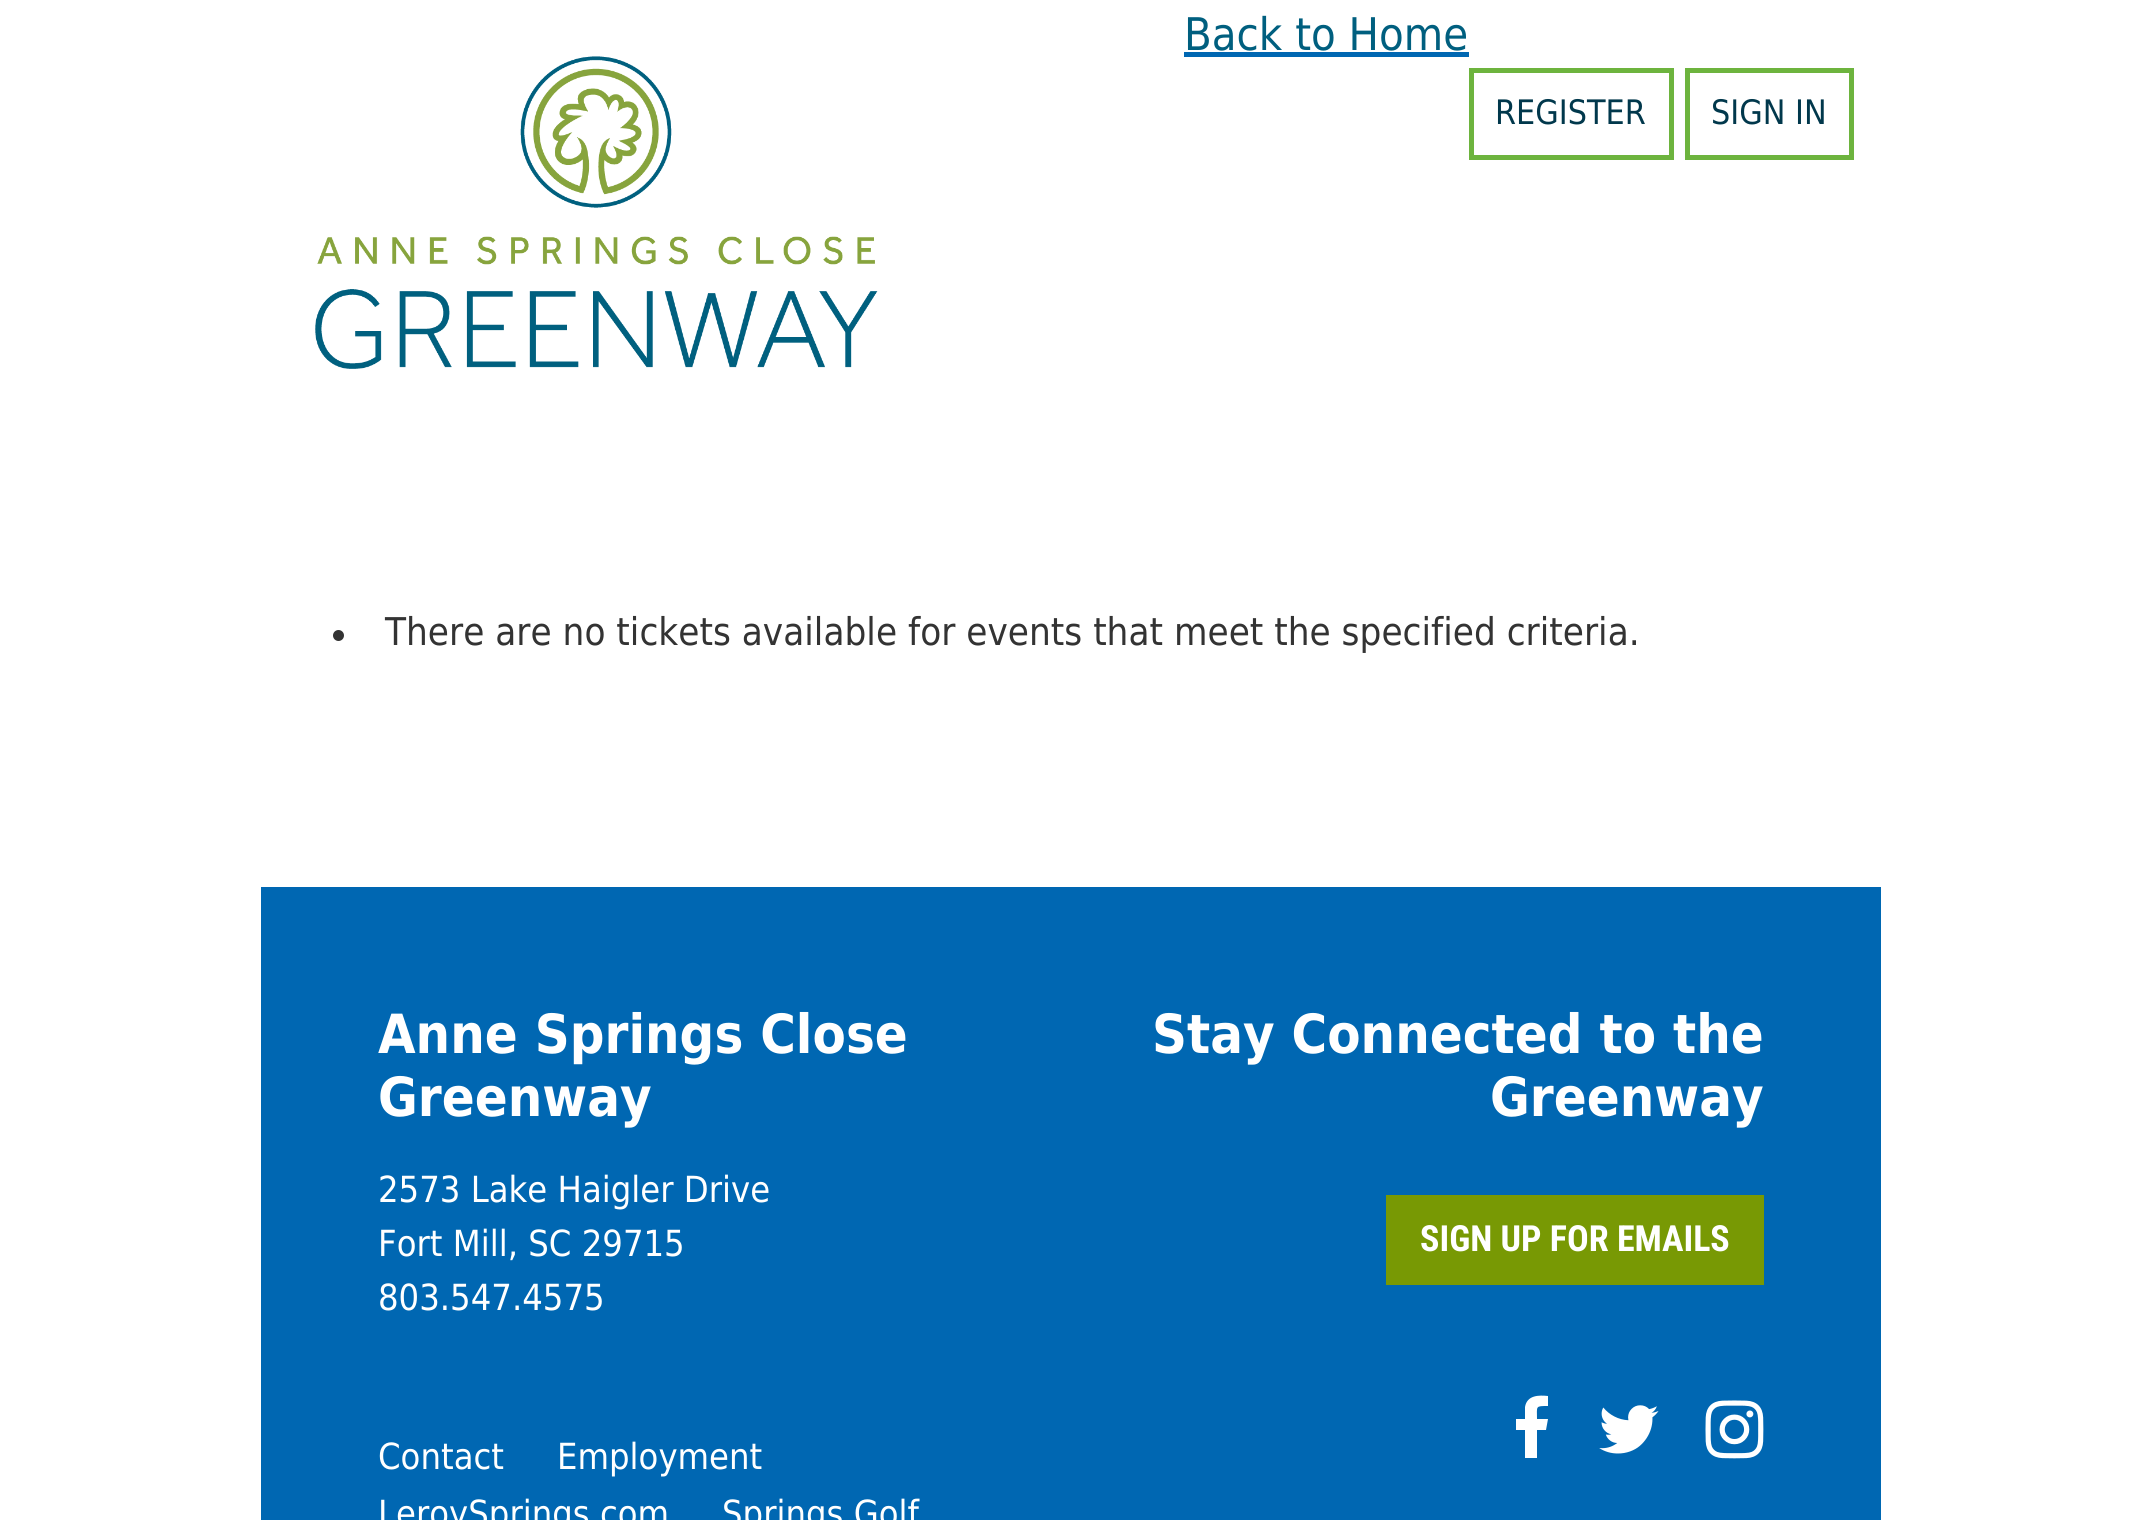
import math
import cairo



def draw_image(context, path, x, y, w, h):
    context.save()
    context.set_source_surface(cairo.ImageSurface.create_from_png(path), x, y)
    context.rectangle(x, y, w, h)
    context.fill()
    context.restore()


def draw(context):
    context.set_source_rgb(1, 1, 1)
    context.paint()
    context.set_source_rgb(0, 103 / 255, 178 / 255)
    context.rectangle(1184, 52, 285, 5)
    context.fill()
    draw_image(context, "images/1.png", 315, 56, 563, 313)
    context.rectangle(1471.5, 70.5, 200, 87)
    context.set_source_rgb(109 / 255, 180 / 255, 62 / 255)
    context.set_line_width(5)
    context.stroke()
    context.rectangle(1687.5, 70.5, 164, 87)
    context.stroke()
    context.set_source_rgb(51 / 255, 51 / 255, 51 / 255)
    context.arc(338.5, 635.5, 5.5, 0, 2 * math.pi)
    context.fill()
    context.set_source_rgb(0, 103 / 255, 178 / 255)
    context.rectangle(261, 887, 1620, 633)
    context.fill()
    context.set_source_rgb(120 / 255, 153 / 255, 4 / 255)
    context.rectangle(1386, 1195, 378, 90)
    context.fill()
    context.set_source_rgb(1, 1, 1)
    context.new_path()
    context.move_to(1548, 1396)
    context.line_to(1548, 1406)
    context.curve_to(1535, 1406, 1537, 1406, 1537, 1419)
    context.line_to(1548, 1419)
    context.line_to(1546, 1430)
    context.line_to(1537, 1430)
    context.line_to(1537, 1458)
    context.line_to(1525, 1458)
    context.line_to(1525, 1430)
    context.line_to(1516, 1430)
    context.line_to(1516, 1419)
    context.line_to(1525, 1419)
    context.line_to(1525, 1407)
    context.curve_to(1527, 1395, 1539, 1395, 1548, 1396)
    context.close_path()
    context.fill()
    draw_image(context, "images/2.png", 1599, 1405, 60, 49)
    draw_image(context, "images/3.png", 1705, 1400, 59, 59)
    context.select_font_face("DejaVu Sans")
    context.set_font_size(45)
    context.set_source_rgb(0, 95 / 255, 127 / 255)
    context.move_to(1184, 50)
    context.show_text("Back to Home")
    context.set_font_size(33.75)
    context.set_source_rgb(1 / 255, 56 / 255, 76 / 255)
    context.move_to(1495, 124)
    context.show_text("REGISTER")
    context.move_to(1711, 124)
    context.show_text("SIGN IN")
    context.set_font_size(38.25)
    context.set_source_rgb(51 / 255, 51 / 255, 51 / 255)
    context.move_to(385, 645)
    context.show_text("There are no tickets available for events that meet the specified criteria.")
    context.select_font_face("DejaVu Sans", cairo.FontSlant.NORMAL, cairo.FontWeight.BOLD)
    context.set_font_size(54)
    context.set_source_rgb(1, 1, 1)
    context.move_to(378, 1053)
    context.show_text("Anne Springs Close")
    context.move_to(378, 1116)
    context.show_text("Greenway")
    context.select_font_face("DejaVu Sans")
    context.set_font_size(36)
    context.move_to(378, 1202)
    context.show_text("2573 Lake Haigler Drive")
    context.move_to(378, 1256)
    context.show_text("Fort Mill, SC 29715")
    context.move_to(378, 1310)
    context.show_text("803.547.4575")
    context.move_to(378, 1469)
    context.show_text("Contact")
    context.move_to(557, 1469)
    context.show_text("Employment")
    context.move_to(378, 1526)
    context.show_text("LeroySprings.com")
    context.move_to(722, 1526)
    context.show_text("Springs Golf")
    context.select_font_face("DejaVu Sans", cairo.FontSlant.NORMAL, cairo.FontWeight.BOLD)
    context.set_font_size(54)
    context.move_to(1152, 1053)
    context.show_text("Stay Connected to the")
    context.move_to(1490, 1116)
    context.show_text("Greenway")
    context.select_font_face("Roboto Condensed", cairo.FontSlant.NORMAL, cairo.FontWeight.BOLD)
    context.set_font_size(36)
    context.move_to(1420, 1251)
    context.show_text("SIGN UP FOR EMAILS")


surface = cairo.ImageSurface(cairo.Format.RGB24, 2141, 1520)
context = cairo.Context(surface)
options = cairo.FontOptions()
options.set_hint_metrics(cairo.HintMetrics.OFF)
options.set_hint_style(cairo.HintStyle.NONE)
context.set_font_options(options)
context.set_miter_limit(4)
draw(context)
surface.write_to_png("out.png")
